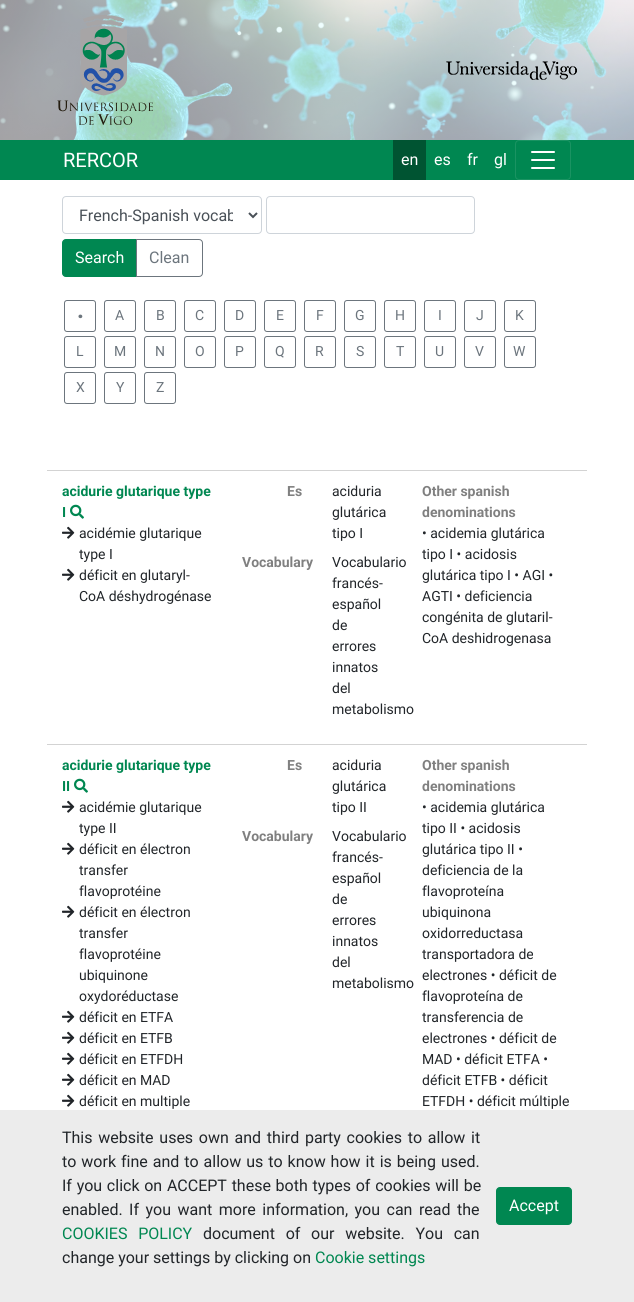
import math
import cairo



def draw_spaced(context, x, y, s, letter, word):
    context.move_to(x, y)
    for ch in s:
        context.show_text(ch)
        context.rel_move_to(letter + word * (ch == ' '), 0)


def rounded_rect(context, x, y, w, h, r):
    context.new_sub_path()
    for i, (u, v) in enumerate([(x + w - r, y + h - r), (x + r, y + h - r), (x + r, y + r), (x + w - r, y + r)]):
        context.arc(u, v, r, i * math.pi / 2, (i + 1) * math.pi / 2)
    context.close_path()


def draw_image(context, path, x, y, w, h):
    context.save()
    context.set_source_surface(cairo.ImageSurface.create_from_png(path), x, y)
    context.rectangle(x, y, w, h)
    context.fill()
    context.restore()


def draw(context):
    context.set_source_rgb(1, 1, 1)
    context.paint()
    draw_image(context, "images/1.png", 0, 0, 634, 140)
    draw_image(context, "images/2.png", 57, 15, 96, 110)
    draw_image(context, "images/3.png", 446, 61, 131, 19)
    context.set_source_rgb(0, 135 / 255, 81 / 255)
    context.rectangle(0, 140, 634, 40)
    context.fill()
    context.set_source_rgb(0, 84 / 255, 50 / 255)
    context.rectangle(393, 140, 33, 40)
    context.fill()
    rounded_rect(context, 515.5, 140.5, 55, 39, 3.5)
    context.set_source_rgb(26 / 255, 147 / 255, 98 / 255)
    context.set_line_width(1)
    context.stroke()
    draw_image(context, "images/4.png", 531, 151, 24, 18)
    rounded_rect(context, 62.5, 196.5, 199, 37, 3.5)
    context.set_source_rgb(206 / 255, 212 / 255, 218 / 255)
    context.stroke()
    context.new_path()
    context.move_to(249, 213)
    context.line_to(253, 217)
    context.line_to(257, 213)
    context.set_source_rgb(73 / 255, 80 / 255, 87 / 255)
    context.set_line_width(2)
    context.stroke()
    rounded_rect(context, 266.5, 196.5, 208, 37, 3.5)
    context.set_source_rgb(206 / 255, 212 / 255, 218 / 255)
    context.set_line_width(1)
    context.stroke()
    context.set_source_rgb(0, 135 / 255, 81 / 255)
    context.new_path()
    context.move_to(66, 239.5)
    context.line_to(136.5, 239.5)
    context.line_to(136.5, 276.5)
    context.line_to(66, 276.5)
    context.curve_to(64, 276.5, 62.5, 275, 62.5, 273)
    context.line_to(62.5, 243)
    context.curve_to(62.5, 241, 64, 239.5, 66, 239.5)
    context.close_path()
    context.fill_preserve()
    context.stroke()
    context.new_path()
    context.move_to(136.5, 239.5)
    context.line_to(199, 239.5)
    context.curve_to(201, 239.5, 202.5, 241, 202.5, 243)
    context.line_to(202.5, 273)
    context.curve_to(202.5, 275, 201, 276.5, 199, 276.5)
    context.line_to(136.5, 276.5)
    context.close_path()
    context.set_source_rgb(108 / 255, 117 / 255, 125 / 255)
    context.stroke()
    rounded_rect(context, 64.5, 300.5, 31, 31, 2.5)
    context.stroke()
    rounded_rect(context, 104.5, 300.5, 31, 31, 2.5)
    context.stroke()
    rounded_rect(context, 144.5, 300.5, 31, 31, 2.5)
    context.stroke()
    rounded_rect(context, 184.5, 300.5, 31, 31, 2.5)
    context.stroke()
    rounded_rect(context, 224.5, 300.5, 31, 31, 2.5)
    context.stroke()
    rounded_rect(context, 264.5, 300.5, 31, 31, 2.5)
    context.stroke()
    rounded_rect(context, 304.5, 300.5, 31, 31, 2.5)
    context.stroke()
    rounded_rect(context, 344.5, 300.5, 31, 31, 2.5)
    context.stroke()
    rounded_rect(context, 384.5, 300.5, 31, 31, 2.5)
    context.stroke()
    rounded_rect(context, 424.5, 300.5, 31, 31, 2.5)
    context.stroke()
    rounded_rect(context, 464.5, 300.5, 31, 31, 2.5)
    context.stroke()
    rounded_rect(context, 504.5, 300.5, 31, 31, 2.5)
    context.stroke()
    rounded_rect(context, 64.5, 336.5, 31, 31, 2.5)
    context.stroke()
    rounded_rect(context, 104.5, 336.5, 31, 31, 2.5)
    context.stroke()
    rounded_rect(context, 144.5, 336.5, 31, 31, 2.5)
    context.stroke()
    rounded_rect(context, 184.5, 336.5, 31, 31, 2.5)
    context.stroke()
    rounded_rect(context, 224.5, 336.5, 31, 31, 2.5)
    context.stroke()
    rounded_rect(context, 264.5, 336.5, 31, 31, 2.5)
    context.stroke()
    rounded_rect(context, 304.5, 336.5, 31, 31, 2.5)
    context.stroke()
    rounded_rect(context, 344.5, 336.5, 31, 31, 2.5)
    context.stroke()
    rounded_rect(context, 384.5, 336.5, 31, 31, 2.5)
    context.stroke()
    rounded_rect(context, 424.5, 336.5, 31, 31, 2.5)
    context.stroke()
    rounded_rect(context, 464.5, 336.5, 31, 31, 2.5)
    context.stroke()
    rounded_rect(context, 504.5, 336.5, 31, 31, 2.5)
    context.stroke()
    rounded_rect(context, 64.5, 372.5, 31, 31, 2.5)
    context.stroke()
    rounded_rect(context, 104.5, 372.5, 31, 31, 2.5)
    context.stroke()
    rounded_rect(context, 144.5, 372.5, 31, 31, 2.5)
    context.stroke()
    context.set_source_rgb(211 / 255, 211 / 255, 211 / 255)
    context.rectangle(47, 470, 540, 1)
    context.fill()
    draw_image(context, "images/5.png", 70, 504, 14, 15)
    draw_image(context, "images/6.png", 62, 526, 13, 13)
    draw_image(context, "images/6.png", 62, 568, 13, 13)
    context.rectangle(47, 744, 540, 1)
    context.fill()
    draw_image(context, "images/5.png", 74, 778, 14, 15)
    draw_image(context, "images/6.png", 62, 800, 13, 13)
    draw_image(context, "images/6.png", 62, 842, 13, 13)
    draw_image(context, "images/6.png", 62, 905, 13, 13)
    draw_image(context, "images/6.png", 62, 1010, 13, 13)
    draw_image(context, "images/6.png", 62, 1031, 13, 13)
    draw_image(context, "images/6.png", 62, 1052, 13, 13)
    draw_image(context, "images/6.png", 62, 1073, 13, 13)
    draw_image(context, "images/6.png", 62, 1094, 13, 13)
    context.set_source_rgb(236 / 255, 236 / 255, 236 / 255)
    context.rectangle(0, 1110, 634, 192)
    context.fill()
    context.set_source_rgb(0, 135 / 255, 81 / 255)
    rounded_rect(context, 496.5, 1187.5, 75, 37, 3.5)
    context.fill_preserve()
    context.stroke()
    context.select_font_face("Roboto")
    context.set_font_size(20)
    context.set_source_rgb(1, 1, 1)
    context.move_to(63, 167)
    context.show_text("RERCOR")
    context.set_font_size(16)
    context.move_to(401, 165)
    context.show_text("en")
    context.move_to(434, 165)
    context.show_text("es")
    context.move_to(467, 165)
    context.show_text("fr")
    context.move_to(494, 165)
    context.show_text("gl")
    context.save()
    context.rectangle(79, 205, 154, 21)
    context.clip()
    context.set_source_rgb(73 / 255, 80 / 255, 87 / 255)
    context.move_to(79, 221)
    context.show_text("French-Spanish vocab")
    context.restore()
    context.move_to(75, 263)
    context.show_text("Search")
    context.set_source_rgb(108 / 255, 117 / 255, 125 / 255)
    context.move_to(149, 263)
    context.show_text("Clean")
    context.select_font_face("Roboto", cairo.FontSlant.NORMAL, cairo.FontWeight.BOLD)
    context.set_font_size(24)
    context.move_to(77, 318)
    context.show_text(".")
    context.select_font_face("Roboto")
    context.set_font_size(14)
    context.move_to(115, 320)
    context.show_text("A")
    context.move_to(156, 320)
    context.show_text("B")
    context.move_to(195, 320)
    context.show_text("C")
    context.move_to(235, 320)
    context.show_text("D")
    context.move_to(276, 320)
    context.show_text("E")
    context.move_to(316, 320)
    context.show_text("F")
    context.move_to(355, 320)
    context.show_text("G")
    context.move_to(395, 320)
    context.show_text("H")
    context.move_to(438, 320)
    context.show_text("I")
    context.move_to(476, 320)
    context.show_text("J")
    context.move_to(515, 320)
    context.show_text("K")
    context.move_to(76, 356)
    context.show_text("L")
    context.move_to(114, 356)
    context.show_text("M")
    context.move_to(155, 356)
    context.show_text("N")
    context.move_to(195, 356)
    context.show_text("O")
    context.move_to(235, 356)
    context.show_text("P")
    context.move_to(275, 356)
    context.show_text("Q")
    context.move_to(315, 356)
    context.show_text("R")
    context.move_to(356, 356)
    context.show_text("S")
    context.move_to(396, 356)
    context.show_text("T")
    context.move_to(435, 356)
    context.show_text("U")
    context.move_to(475, 356)
    context.show_text("V")
    context.move_to(513, 356)
    context.show_text("W")
    context.move_to(76, 392)
    context.show_text("X")
    context.move_to(116, 392)
    context.show_text("Y")
    context.move_to(156, 392)
    context.show_text("Z")
    context.select_font_face("Roboto", cairo.FontSlant.NORMAL, cairo.FontWeight.BOLD)
    context.set_source_rgb(0, 135 / 255, 81 / 255)
    context.move_to(62, 496)
    context.show_text("acidurie glutarique type")
    context.move_to(62, 517)
    context.show_text("I")
    context.select_font_face("Roboto")
    context.set_source_rgb(33 / 255, 37 / 255, 41 / 255)
    context.move_to(79, 538)
    context.show_text("acidémie glutarique")
    context.move_to(79, 559)
    context.show_text("type I")
    context.move_to(79, 580)
    context.show_text("déficit en glutaryl-")
    context.move_to(79, 601)
    context.show_text("CoA déshydrogénase")
    context.select_font_face("Roboto", cairo.FontSlant.NORMAL, cairo.FontWeight.BOLD)
    context.set_source_rgb(128 / 255, 128 / 255, 128 / 255)
    context.move_to(287, 496)
    context.show_text("Es")
    context.select_font_face("Roboto")
    context.set_source_rgb(33 / 255, 37 / 255, 41 / 255)
    context.move_to(332, 496)
    context.show_text("aciduria")
    context.move_to(332, 517)
    context.show_text("glutárica")
    context.move_to(332, 538)
    context.show_text("tipo I")
    context.select_font_face("Roboto", cairo.FontSlant.NORMAL, cairo.FontWeight.BOLD)
    context.set_source_rgb(128 / 255, 128 / 255, 128 / 255)
    context.move_to(242, 567)
    context.show_text("Vocabulary")
    context.select_font_face("Roboto")
    context.set_source_rgb(33 / 255, 37 / 255, 41 / 255)
    context.move_to(332, 567)
    context.show_text("Vocabulario")
    context.move_to(332, 588)
    context.show_text("francés-")
    context.move_to(332, 609)
    context.show_text("español")
    context.move_to(332, 630)
    context.show_text("de")
    context.move_to(332, 651)
    context.show_text("errores")
    context.move_to(332, 672)
    context.show_text("innatos")
    context.move_to(332, 693)
    context.show_text("del")
    context.move_to(332, 714)
    context.show_text("metabolismo")
    context.select_font_face("Roboto", cairo.FontSlant.NORMAL, cairo.FontWeight.BOLD)
    context.set_source_rgb(128 / 255, 128 / 255, 128 / 255)
    context.move_to(422, 496)
    context.show_text("Other spanish")
    context.move_to(422, 517)
    context.show_text("denominations")
    context.select_font_face("Roboto")
    context.set_source_rgb(33 / 255, 37 / 255, 41 / 255)
    context.move_to(422, 538)
    context.show_text("• acidemia glutárica")
    context.move_to(422, 559)
    context.show_text("tipo I • acidosis")
    context.move_to(422, 580)
    context.show_text("glutárica tipo I • AGI •")
    context.move_to(422, 601)
    context.show_text("AGTI • deficiencia")
    context.move_to(422, 622)
    context.show_text("congénita de glutaril-")
    context.move_to(422, 643)
    context.show_text("CoA deshidrogenasa")
    context.select_font_face("Roboto", cairo.FontSlant.NORMAL, cairo.FontWeight.BOLD)
    context.set_source_rgb(0, 135 / 255, 81 / 255)
    context.move_to(62, 770)
    context.show_text("acidurie glutarique type")
    context.move_to(62, 791)
    context.show_text("II")
    context.select_font_face("Roboto")
    context.set_source_rgb(33 / 255, 37 / 255, 41 / 255)
    context.move_to(79, 812)
    context.show_text("acidémie glutarique")
    context.move_to(79, 833)
    context.show_text("type II")
    context.move_to(79, 854)
    context.show_text("déficit en électron")
    context.move_to(79, 875)
    context.show_text("transfer")
    context.move_to(79, 896)
    context.show_text("flavoprotéine")
    context.move_to(79, 917)
    context.show_text("déficit en électron")
    context.move_to(79, 938)
    context.show_text("transfer")
    context.move_to(79, 959)
    context.show_text("flavoprotéine")
    context.move_to(79, 980)
    context.show_text("ubiquinone")
    context.move_to(79, 1001)
    context.show_text("oxydoréductase")
    context.move_to(79, 1022)
    context.show_text("déficit en ETFA")
    context.move_to(79, 1043)
    context.show_text("déficit en ETFB")
    context.move_to(79, 1064)
    context.show_text("déficit en ETFDH")
    context.move_to(79, 1085)
    context.show_text("déficit en MAD")
    context.move_to(79, 1106)
    context.show_text("déficit en multiple")
    context.select_font_face("Roboto", cairo.FontSlant.NORMAL, cairo.FontWeight.BOLD)
    context.set_source_rgb(128 / 255, 128 / 255, 128 / 255)
    context.move_to(287, 770)
    context.show_text("Es")
    context.select_font_face("Roboto")
    context.set_source_rgb(33 / 255, 37 / 255, 41 / 255)
    context.move_to(332, 770)
    context.show_text("aciduria")
    context.move_to(332, 791)
    context.show_text("glutárica")
    context.move_to(332, 812)
    context.show_text("tipo II")
    context.select_font_face("Roboto", cairo.FontSlant.NORMAL, cairo.FontWeight.BOLD)
    context.set_source_rgb(128 / 255, 128 / 255, 128 / 255)
    context.move_to(242, 841)
    context.show_text("Vocabulary")
    context.select_font_face("Roboto")
    context.set_source_rgb(33 / 255, 37 / 255, 41 / 255)
    context.move_to(332, 841)
    context.show_text("Vocabulario")
    context.move_to(332, 862)
    context.show_text("francés-")
    context.move_to(332, 883)
    context.show_text("español")
    context.move_to(332, 904)
    context.show_text("de")
    context.move_to(332, 925)
    context.show_text("errores")
    context.move_to(332, 946)
    context.show_text("innatos")
    context.move_to(332, 967)
    context.show_text("del")
    context.move_to(332, 988)
    context.show_text("metabolismo")
    context.select_font_face("Roboto", cairo.FontSlant.NORMAL, cairo.FontWeight.BOLD)
    context.set_source_rgb(128 / 255, 128 / 255, 128 / 255)
    context.move_to(422, 770)
    context.show_text("Other spanish")
    context.move_to(422, 791)
    context.show_text("denominations")
    context.select_font_face("Roboto")
    context.set_source_rgb(33 / 255, 37 / 255, 41 / 255)
    context.move_to(422, 812)
    context.show_text("• acidemia glutárica")
    context.move_to(422, 833)
    context.show_text("tipo II • acidosis")
    context.move_to(422, 854)
    context.show_text("glutárica tipo II •")
    context.move_to(422, 875)
    context.show_text("deficiencia de la")
    context.move_to(422, 896)
    context.show_text("flavoproteína")
    context.move_to(422, 917)
    context.show_text("ubiquinona")
    context.move_to(422, 938)
    context.show_text("oxidorreductasa")
    context.move_to(422, 959)
    context.show_text("transportadora de")
    context.move_to(422, 980)
    context.show_text("electrones • déficit de")
    context.move_to(422, 1001)
    context.show_text("flavoproteína de")
    context.move_to(422, 1022)
    context.show_text("transferencia de")
    context.move_to(422, 1043)
    context.show_text("electrones • déficit de")
    context.move_to(422, 1064)
    context.show_text("MAD • déficit ETFA •")
    context.move_to(422, 1085)
    context.show_text("déficit ETFB • déficit")
    context.move_to(422, 1106)
    context.show_text("ETFDH • déficit múltiple")
    context.set_font_size(16)
    draw_spaced(context, 62, 1143, "This website uses own and third party cookies to allow it", 0, 1.75)
    draw_spaced(context, 62, 1167, "to work fine and to allow us to know how it is being used.", 0, 1)
    draw_spaced(context, 62, 1191, "If you click on ACCEPT these both types of cookies will be", 0, 0.75)
    draw_spaced(context, 62, 1215, "enabled. If you want more information, you can read the", 0, 2.5)
    context.set_source_rgb(0, 135 / 255, 81 / 255)
    draw_spaced(context, 62, 1239, "COOKIES POLICY", 0, 6.75)
    context.set_source_rgb(33 / 255, 37 / 255, 41 / 255)
    draw_spaced(context, 203, 1239, "document of our website. You can", 0, 6.75)
    context.move_to(62, 1263)
    context.show_text("change your settings by clicking on")
    context.set_source_rgb(0, 135 / 255, 81 / 255)
    context.move_to(315, 1263)
    context.show_text("Cookie settings")
    context.set_source_rgb(1, 1, 1)
    context.move_to(509, 1211)
    context.show_text("Accept")


surface = cairo.ImageSurface(cairo.Format.RGB24, 634, 1302)
context = cairo.Context(surface)
options = cairo.FontOptions()
options.set_hint_metrics(cairo.HintMetrics.OFF)
options.set_hint_style(cairo.HintStyle.NONE)
context.set_font_options(options)
context.set_miter_limit(4)
draw(context)
surface.write_to_png("out.png")
